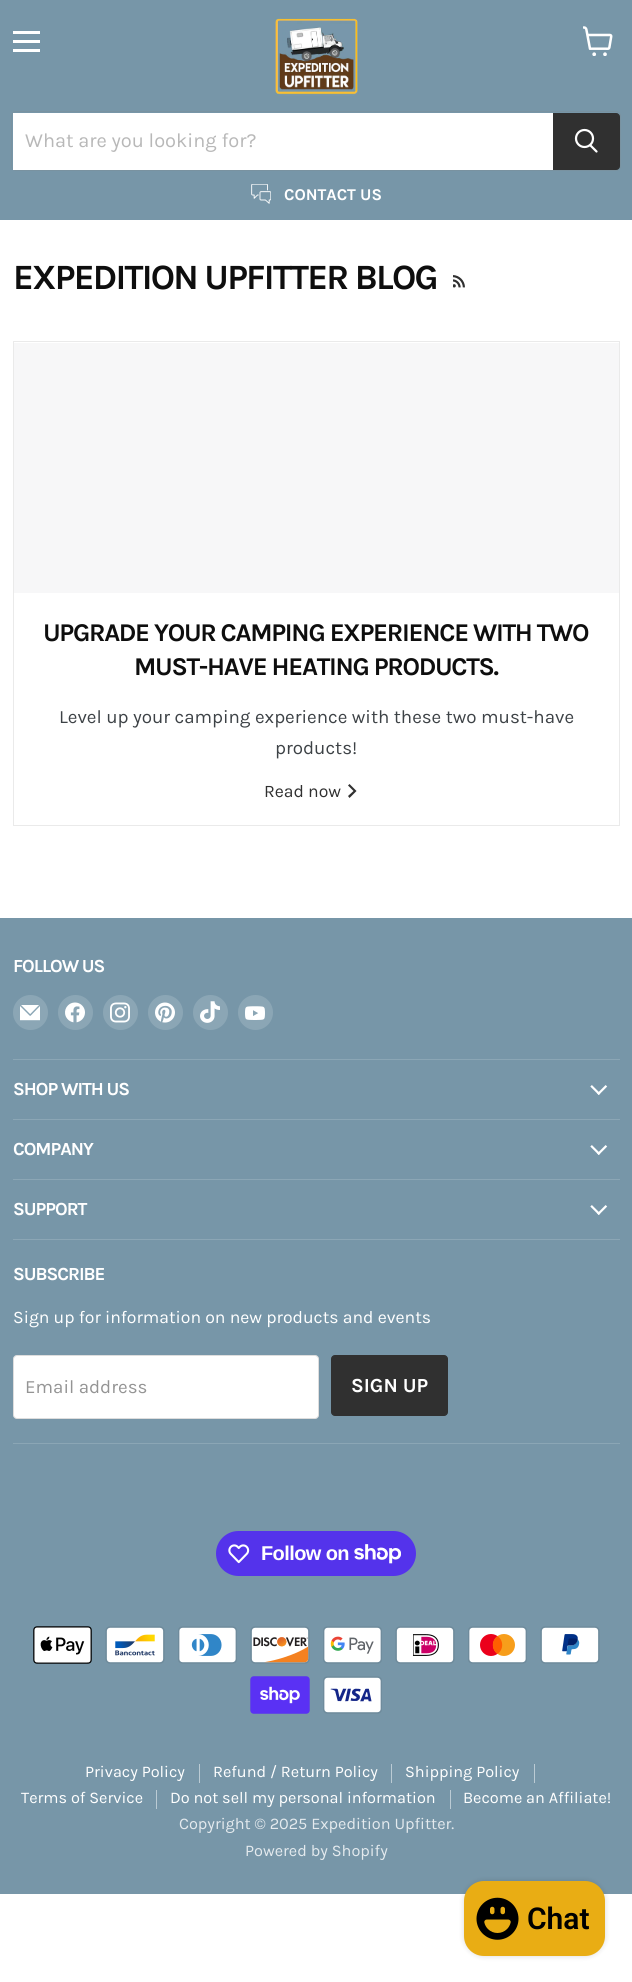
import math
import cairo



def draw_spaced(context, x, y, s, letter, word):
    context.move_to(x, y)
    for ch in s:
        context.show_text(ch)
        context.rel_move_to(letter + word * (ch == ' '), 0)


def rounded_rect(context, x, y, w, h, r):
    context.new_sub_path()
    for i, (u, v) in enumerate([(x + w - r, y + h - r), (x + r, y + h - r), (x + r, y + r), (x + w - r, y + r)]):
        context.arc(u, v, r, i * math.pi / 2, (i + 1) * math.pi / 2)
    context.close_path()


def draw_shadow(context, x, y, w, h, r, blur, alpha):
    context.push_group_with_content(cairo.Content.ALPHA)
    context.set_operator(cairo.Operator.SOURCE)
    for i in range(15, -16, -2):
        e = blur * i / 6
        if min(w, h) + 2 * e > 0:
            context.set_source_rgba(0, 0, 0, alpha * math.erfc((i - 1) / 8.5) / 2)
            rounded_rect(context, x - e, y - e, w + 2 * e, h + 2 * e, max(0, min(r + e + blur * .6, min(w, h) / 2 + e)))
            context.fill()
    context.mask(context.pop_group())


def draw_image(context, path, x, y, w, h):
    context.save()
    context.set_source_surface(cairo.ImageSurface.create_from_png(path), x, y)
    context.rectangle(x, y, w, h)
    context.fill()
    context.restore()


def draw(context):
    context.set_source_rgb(1, 1, 1)
    context.paint()
    context.set_source_rgb(119 / 255, 150 / 255, 168 / 255)
    context.rectangle(0, 0, 632, 220)
    context.fill()
    context.set_source_rgb(1, 1, 1)
    context.rectangle(13, 31, 27, 3)
    context.fill()
    context.rectangle(13, 40, 27, 3)
    context.fill()
    context.rectangle(13, 49, 27, 3)
    context.fill()
    draw_image(context, "images/1.png", 583, 26, 30, 30)
    draw_image(context, "images/2.png", 275, 18, 84, 78)
    rounded_rect(context, 11.5, 111.5, 609, 59, 4.5)
    context.set_source_rgb(121 / 255, 146 / 255, 160 / 255)
    context.set_line_width(1)
    context.stroke()
    context.set_source_rgb(1, 1, 1)
    context.rectangle(13, 113, 540, 57)
    context.fill()
    context.set_source_rgb(48 / 255, 48 / 255, 48 / 255)
    context.new_path()
    context.move_to(553.5, 113.5)
    context.line_to(616, 113.5)
    context.curve_to(618, 113.5, 619.5, 115, 619.5, 117)
    context.line_to(619.5, 166)
    context.curve_to(619.5, 168, 618, 169.5, 616, 169.5)
    context.line_to(553.5, 169.5)
    context.close_path()
    context.fill_preserve()
    context.stroke()
    context.new_path()
    context.move_to(596.5, 151.5)
    context.line_to(590.5, 145.5)
    context.set_source_rgb(1, 1, 1)
    context.set_line_width(2.2)
    context.set_line_cap(cairo.LineCap.ROUND)
    context.stroke()
    context.arc(584.5, 138.5, 8.5, 0, 2 * math.pi)
    context.set_line_cap(cairo.LineCap.BUTT)
    context.stroke()
    draw_image(context, "images/3.png", 251, 184, 20, 20)
    draw_image(context, "images/4.png", 453, 275, 12, 13)
    context.rectangle(13.5, 341.5, 606, 484)
    context.set_source_rgb(234 / 255, 234 / 255, 234 / 255)
    context.set_line_width(1)
    context.stroke()
    context.set_source_rgb(247 / 255, 247 / 255, 248 / 255)
    context.rectangle(14, 343, 605, 250)
    context.fill()
    context.set_source_rgb(48 / 255, 48 / 255, 48 / 255)
    context.set_fill_rule(cairo.FillRule.EVEN_ODD)
    context.new_path()
    context.move_to(353.5, 791)
    context.line_to(348, 785.5)
    context.line_to(349.5, 784)
    context.line_to(356.5, 791)
    context.line_to(349.5, 798)
    context.line_to(348, 796)
    context.close_path()
    context.fill()
    context.set_source_rgb(119 / 255, 150 / 255, 168 / 255)
    context.rectangle(0, 918, 632, 976)
    context.fill()
    context.set_source_rgb(139 / 255, 166 / 255, 181 / 255)
    context.rectangle(13, 1059, 607, 1)
    context.fill()
    context.arc(30.5, 1012.5, 17.5, 0, 2 * math.pi)
    context.fill()
    draw_image(context, "images/5.png", 20, 1005, 20, 16)
    context.arc(75.5, 1012.5, 17.5, 0, 2 * math.pi)
    context.fill()
    draw_image(context, "images/6.png", 65, 1002, 20, 21)
    context.arc(120.5, 1012.5, 17.5, 0, 2 * math.pi)
    context.fill()
    draw_image(context, "images/7.png", 110, 1002, 20, 21)
    context.arc(165.5, 1012.5, 17.5, 0, 2 * math.pi)
    context.fill()
    draw_image(context, "images/8.png", 155, 1002, 20, 21)
    context.arc(210.5, 1012.5, 17.5, 0, 2 * math.pi)
    context.fill()
    draw_image(context, "images/9.png", 200, 1001, 20, 22)
    context.arc(255.5, 1012.5, 17.5, 0, 2 * math.pi)
    context.fill()
    draw_image(context, "images/10.png", 245, 1006, 20, 14)
    context.rectangle(13, 1119, 607, 1)
    context.fill()
    draw_image(context, "images/11.png", 590, 1085, 18, 10)
    context.rectangle(13, 1179, 607, 1)
    context.fill()
    draw_image(context, "images/11.png", 590, 1145, 18, 10)
    context.rectangle(13, 1239, 607, 1)
    context.fill()
    draw_image(context, "images/11.png", 590, 1205, 18, 10)
    context.rectangle(13, 1443, 607, 1)
    context.fill()
    context.set_source_rgb(1, 1, 1)
    rounded_rect(context, 13.5, 1355.5, 305, 63, 3.5)
    context.fill_preserve()
    context.set_source_rgb(221 / 255, 221 / 255, 221 / 255)
    context.stroke()
    context.set_source_rgb(48 / 255, 48 / 255, 48 / 255)
    rounded_rect(context, 331.5, 1355.5, 116, 60, 3.5)
    context.fill_preserve()
    context.stroke()
    context.set_source_rgb(84 / 255, 51 / 255, 235 / 255)
    rounded_rect(context, 216, 1531, 200, 45, 22.5)
    context.fill()
    draw_image(context, "images/12.png", 228, 1544, 22, 20)
    draw_image(context, "images/13.png", 354, 1544, 47, 20)
    draw_image(context, "images/14.png", 33, 1626, 59, 38)
    draw_image(context, "images/15.png", 105, 1626, 60, 38)
    draw_image(context, "images/16.png", 178, 1626, 59, 38)
    draw_image(context, "images/17.png", 250, 1626, 60, 38)
    draw_image(context, "images/18.png", 323, 1626, 59, 38)
    draw_image(context, "images/19.png", 395, 1626, 60, 38)
    draw_image(context, "images/20.png", 468, 1626, 59, 38)
    draw_image(context, "images/21.png", 540, 1626, 60, 38)
    draw_image(context, "images/22.png", 250, 1676, 60, 38)
    draw_image(context, "images/23.png", 323, 1676, 59, 38)
    context.set_source_rgb(187 / 255, 203 / 255, 212 / 255)
    context.rectangle(199, 1764, 1, 19)
    context.fill()
    context.rectangle(391, 1764, 1, 19)
    context.fill()
    context.rectangle(534, 1764, 1, 19)
    context.fill()
    context.rectangle(156, 1790, 1, 19)
    context.fill()
    context.rectangle(450, 1790, 1, 19)
    context.fill()
    context.set_source_rgb(0, 0, 0)
    draw_shadow(context, 464, 1881, 141, 75, 20, 3, 0.15)
    context.set_source_rgb(233 / 255, 173 / 255, 20 / 255)
    rounded_rect(context, 464, 1881, 141, 75, 20)
    context.fill()
    draw_image(context, "images/24.png", 476, 1897, 43, 43)
    context.select_font_face("Karla")
    context.set_font_size(20)
    context.set_source_rgb(184 / 255, 184 / 255, 184 / 255)
    context.move_to(25, 147)
    context.show_text("What are you looking for?")
    context.select_font_face("Karla", cairo.FontSlant.NORMAL, cairo.FontWeight.BOLD)
    context.set_font_size(16.5)
    context.set_source_rgb(1, 1, 1)
    context.move_to(284, 200)
    context.show_text("CONTACT US")
    context.set_font_size(35.6)
    context.set_source_rgb(14 / 255, 14 / 255, 14 / 255)
    draw_spaced(context, 13, 289, "EXPEDITION UPFITTER BLOG", -1.75, 0)
    context.set_font_size(25.6)
    draw_spaced(context, 43, 641, "UPGRADE YOUR CAMPING EXPERIENCE WITH TWO", -1.3, 0)
    draw_spaced(context, 134, 675, "MUST-HAVE HEATING PRODUCTS.", -1.3, 0)
    context.select_font_face("Karla")
    context.set_font_size(18.75)
    context.set_source_rgb(61 / 255, 66 / 255, 70 / 255)
    context.move_to(59, 723)
    context.show_text("Level up your camping experience with these two must-have")
    context.move_to(275, 754)
    context.show_text("products!")
    context.set_font_size(17.6)
    context.set_source_rgb(48 / 255, 48 / 255, 48 / 255)
    context.move_to(264, 797)
    context.show_text("Read now")
    context.select_font_face("Karla", cairo.FontSlant.NORMAL, cairo.FontWeight.BOLD)
    context.set_font_size(18.5)
    context.set_source_rgb(1, 1, 1)
    draw_spaced(context, 13, 972, "FOLLOW US", -1, 0)
    draw_spaced(context, 13, 1095, "SHOP WITH US", -1, 0)
    draw_spaced(context, 13, 1155, "COMPANY", -1, 0)
    draw_spaced(context, 13, 1215, "SUPPORT", -1, 0)
    draw_spaced(context, 13, 1280, "SUBSCRIBE", -1, 0)
    context.select_font_face("Karla")
    context.set_font_size(17.6)
    context.move_to(13, 1323)
    context.show_text("Sign up for information on new products and events")
    context.set_font_size(18.75)
    context.set_source_rgb(148 / 255, 148 / 255, 148 / 255)
    context.move_to(25, 1393)
    context.show_text("Email address")
    context.select_font_face("Karla", cairo.FontSlant.NORMAL, cairo.FontWeight.BOLD)
    context.set_font_size(20)
    context.set_source_rgb(1, 1, 1)
    context.move_to(351, 1392)
    context.show_text("SIGN UP")
    context.select_font_face("Liberation Sans", cairo.FontSlant.NORMAL, cairo.FontWeight.BOLD)
    draw_spaced(context, 261, 1560, "Follow on", -0.6, 0)
    context.select_font_face("Karla")
    context.set_font_size(16.25)
    context.move_to(85, 1777)
    context.show_text("Privacy Policy")
    context.move_to(213, 1777)
    context.show_text("Refund / Return Policy")
    context.move_to(405, 1777)
    context.show_text("Shipping Policy")
    context.move_to(21, 1803)
    context.show_text("Terms of Service")
    context.move_to(170, 1803)
    context.show_text("Do not sell my personal information")
    context.move_to(463, 1803)
    context.show_text("Become an Affiliate!")
    context.set_source_rgb(228 / 255, 234 / 255, 238 / 255)
    context.move_to(179, 1829)
    context.show_text("Copyright © 2025 Expedition Upfitter.")
    context.move_to(245, 1856)
    context.show_text("Powered by Shopify")
    context.select_font_face("Roboto SemiBold")
    context.set_font_size(30)
    context.set_source_rgb(0, 0, 0)
    context.move_to(527, 1929)
    context.show_text("Chat")


surface = cairo.ImageSurface(cairo.Format.RGB24, 632, 1982)
context = cairo.Context(surface)
options = cairo.FontOptions()
options.set_hint_metrics(cairo.HintMetrics.OFF)
options.set_hint_style(cairo.HintStyle.NONE)
context.set_font_options(options)
context.set_miter_limit(4)
draw(context)
surface.write_to_png("out.png")
